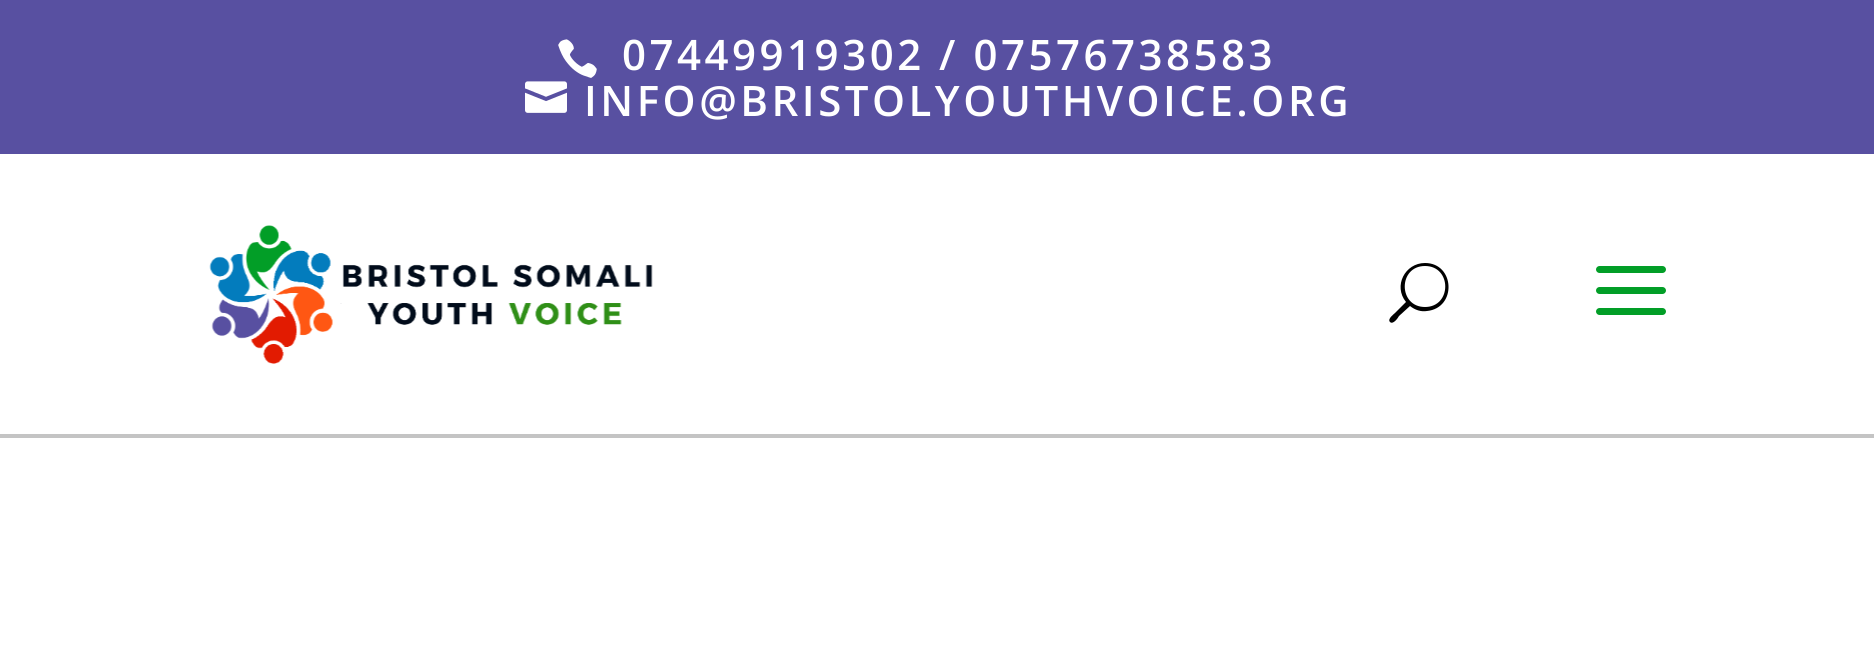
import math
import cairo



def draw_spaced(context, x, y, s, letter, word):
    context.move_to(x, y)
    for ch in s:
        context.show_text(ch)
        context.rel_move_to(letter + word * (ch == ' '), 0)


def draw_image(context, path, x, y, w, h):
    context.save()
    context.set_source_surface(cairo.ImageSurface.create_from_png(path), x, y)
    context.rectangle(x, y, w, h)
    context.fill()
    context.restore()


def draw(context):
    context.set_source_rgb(1, 1, 1)
    context.paint()
    context.set_source_rgb(88 / 255, 80 / 255, 161 / 255)
    context.rectangle(0, 0, 1874, 154)
    context.fill()
    draw_image(context, "images/1.png", 558, 39, 39, 39)
    draw_image(context, "images/2.png", 525, 81, 42, 32)
    context.set_source_rgb(196 / 255, 196 / 255, 196 / 255)
    context.rectangle(0, 434, 1874, 4)
    context.fill()
    draw_image(context, "images/3.png", 209, 225, 444, 139)
    context.set_source_rgb(0, 0, 0)
    context.new_path()
    context.move_to(1425, 263)
    context.curve_to(1405, 263, 1393, 286, 1406, 302)
    context.line_to(1395, 313)
    context.curve_to(1394, 314, 1387, 319, 1390, 322)
    context.curve_to(1393, 325, 1398, 318, 1399, 316)
    context.line_to(1410, 306)
    context.curve_to(1415, 310, 1421, 312, 1427, 311)
    context.curve_to(1457, 308, 1455, 263, 1425, 263)
    context.close_path()
    context.move_to(1425, 307)
    context.curve_to(1398, 307, 1398, 266, 1425, 266)
    context.curve_to(1452, 266, 1452, 307, 1425, 307)
    context.close_path()
    context.fill()
    draw_image(context, "images/4.png", 1596, 266, 70, 49)
    context.select_font_face("Open Sans SemiBold")
    context.set_font_size(42)
    context.set_source_rgb(1, 1, 1)
    draw_spaced(context, 622, 70, "07449919302 / 07576738583", 3.5, 0)
    draw_spaced(context, 584, 116, "INFO@BRISTOLYOUTHVOICE.ORG", 3.5, 0)


surface = cairo.ImageSurface(cairo.Format.RGB24, 1874, 665)
context = cairo.Context(surface)
options = cairo.FontOptions()
options.set_hint_metrics(cairo.HintMetrics.OFF)
options.set_hint_style(cairo.HintStyle.NONE)
context.set_font_options(options)
context.set_miter_limit(4)
draw(context)
surface.write_to_png("out.png")
